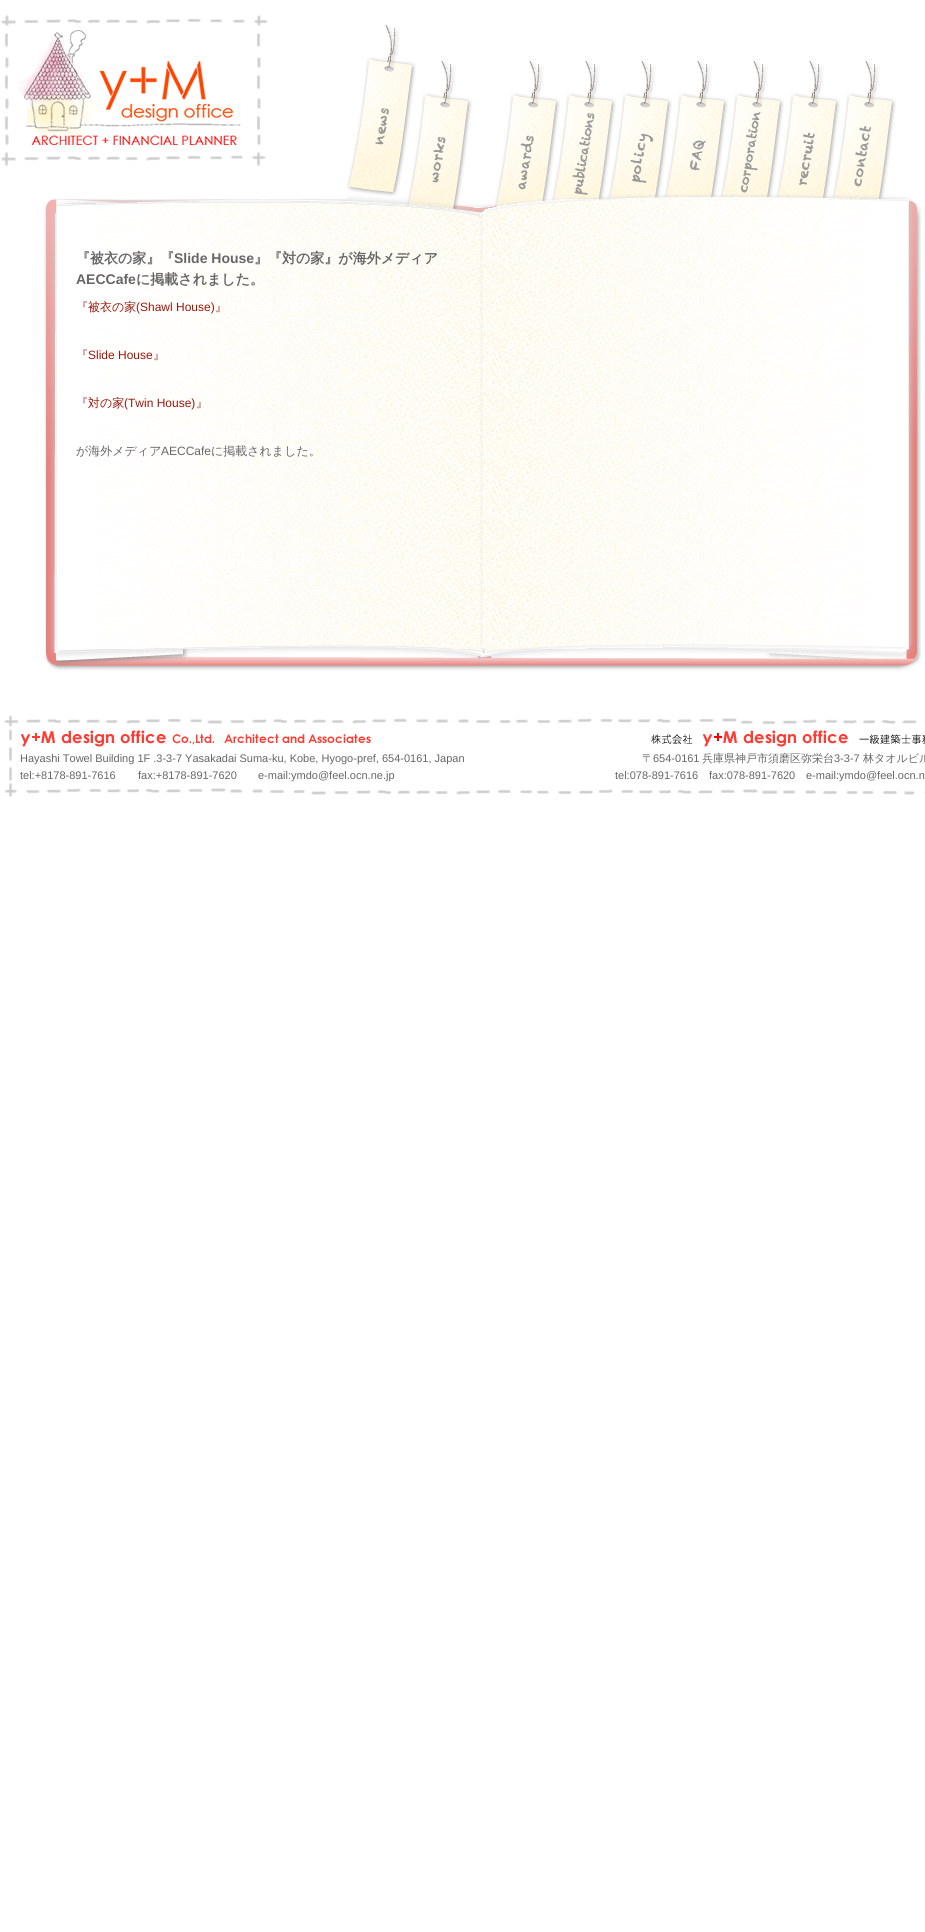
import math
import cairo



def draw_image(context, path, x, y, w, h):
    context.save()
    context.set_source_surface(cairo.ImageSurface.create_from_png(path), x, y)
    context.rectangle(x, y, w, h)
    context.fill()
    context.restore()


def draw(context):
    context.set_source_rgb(1, 1, 1)
    context.paint()
    draw_image(context, "images/1.png", 1, 15, 267, 151)
    draw_image(context, "images/2.png", 347, 24, 564, 175)
    draw_image(context, "images/3.png", 44, 199, 877, 472)
    draw_image(context, "images/4.png", 56, 201, 426, 448)
    draw_image(context, "images/5.png", 483, 199, 426, 450)
    draw_image(context, "images/6.png", 4, 715, 921, 82)
    draw_image(context, "images/7.png", 20, 730, 351, 17)
    draw_image(context, "images/8.png", 651, 730, 274, 17)
    context.select_font_face("WenQuanYi Zen Hei", cairo.FontSlant.NORMAL, cairo.FontWeight.BOLD)
    context.set_font_size(14)
    context.set_source_rgb(102 / 255, 102 / 255, 102 / 255)
    context.move_to(76, 263)
    context.show_text("『被衣の家』『")
    context.select_font_face("Liberation Sans", cairo.FontSlant.NORMAL, cairo.FontWeight.BOLD)
    context.move_to(174, 263)
    context.show_text("Slide House")
    context.select_font_face("WenQuanYi Zen Hei", cairo.FontSlant.NORMAL, cairo.FontWeight.BOLD)
    context.move_to(254, 263)
    context.show_text("』『対の家』が海外メディア")
    context.select_font_face("Liberation Sans", cairo.FontSlant.NORMAL, cairo.FontWeight.BOLD)
    context.move_to(76, 284)
    context.show_text("AECCafe")
    context.select_font_face("WenQuanYi Zen Hei", cairo.FontSlant.NORMAL, cairo.FontWeight.BOLD)
    context.move_to(136, 284)
    context.show_text("に掲載されました。")
    context.select_font_face("WenQuanYi Zen Hei Medium")
    context.set_font_size(12)
    context.set_source_rgb(152 / 255, 24 / 255, 12 / 255)
    context.move_to(76, 311)
    context.show_text("『被衣の家")
    context.select_font_face("Liberation Sans")
    context.move_to(136, 311)
    context.show_text("(Shawl House)")
    context.select_font_face("WenQuanYi Zen Hei Medium")
    context.move_to(215, 311)
    context.show_text("』")
    context.move_to(76, 359)
    context.show_text("『")
    context.select_font_face("Liberation Sans")
    context.move_to(88, 359)
    context.show_text("Slide House")
    context.select_font_face("WenQuanYi Zen Hei Medium")
    context.move_to(153, 359)
    context.show_text("』")
    context.move_to(76, 407)
    context.show_text("『対の家")
    context.select_font_face("Liberation Sans")
    context.move_to(124, 407)
    context.show_text("(Twin House)")
    context.select_font_face("WenQuanYi Zen Hei Medium")
    context.move_to(196, 407)
    context.show_text("』")
    context.set_source_rgb(102 / 255, 102 / 255, 102 / 255)
    context.move_to(76, 455)
    context.show_text("が海外メディア")
    context.select_font_face("Liberation Sans")
    context.move_to(161, 455)
    context.show_text("AECCafe")
    context.select_font_face("WenQuanYi Zen Hei Medium")
    context.move_to(211, 455)
    context.show_text("に掲載されました。")
    context.select_font_face("Liberation Sans")
    context.set_font_size(11)
    context.move_to(20, 762)
    context.show_text("Hayashi Towel Building 1F .3-3-7 Yasakadai Suma-ku, Kobe, Hyogo-pref, 654-0161, Japan")
    context.move_to(20, 779)
    context.show_text("tel:+8178-891-7616")
    context.move_to(138, 779)
    context.show_text("fax:+8178-891-7620")
    context.move_to(258, 779)
    context.show_text("e-mail:ymdo@feel.ocn.ne.jp")
    context.select_font_face("WenQuanYi Zen Hei Medium")
    context.move_to(642, 762)
    context.show_text("〒")
    context.select_font_face("Liberation Sans")
    context.move_to(653, 762)
    context.show_text("654-0161")
    context.select_font_face("WenQuanYi Zen Hei Medium")
    context.move_to(702, 762)
    context.show_text("兵庫県神戸市須磨区弥栄台")
    context.select_font_face("Liberation Sans")
    context.move_to(834, 762)
    context.show_text("3-3-7")
    context.select_font_face("WenQuanYi Zen Hei Medium")
    context.move_to(863, 762)
    context.show_text("林タオルビル")
    context.select_font_face("Liberation Sans")
    context.move_to(615, 779)
    context.show_text("tel:078-891-7616")
    context.move_to(709, 779)
    context.show_text("fax:078-891-7620")
    context.move_to(806, 779)
    context.show_text("e-mail:ymdo@feel.ocn.n")


surface = cairo.ImageSurface(cairo.Format.RGB24, 925, 1932)
context = cairo.Context(surface)
options = cairo.FontOptions()
options.set_hint_metrics(cairo.HintMetrics.OFF)
options.set_hint_style(cairo.HintStyle.NONE)
context.set_font_options(options)
context.set_miter_limit(4)
draw(context)
surface.write_to_png("out.png")
